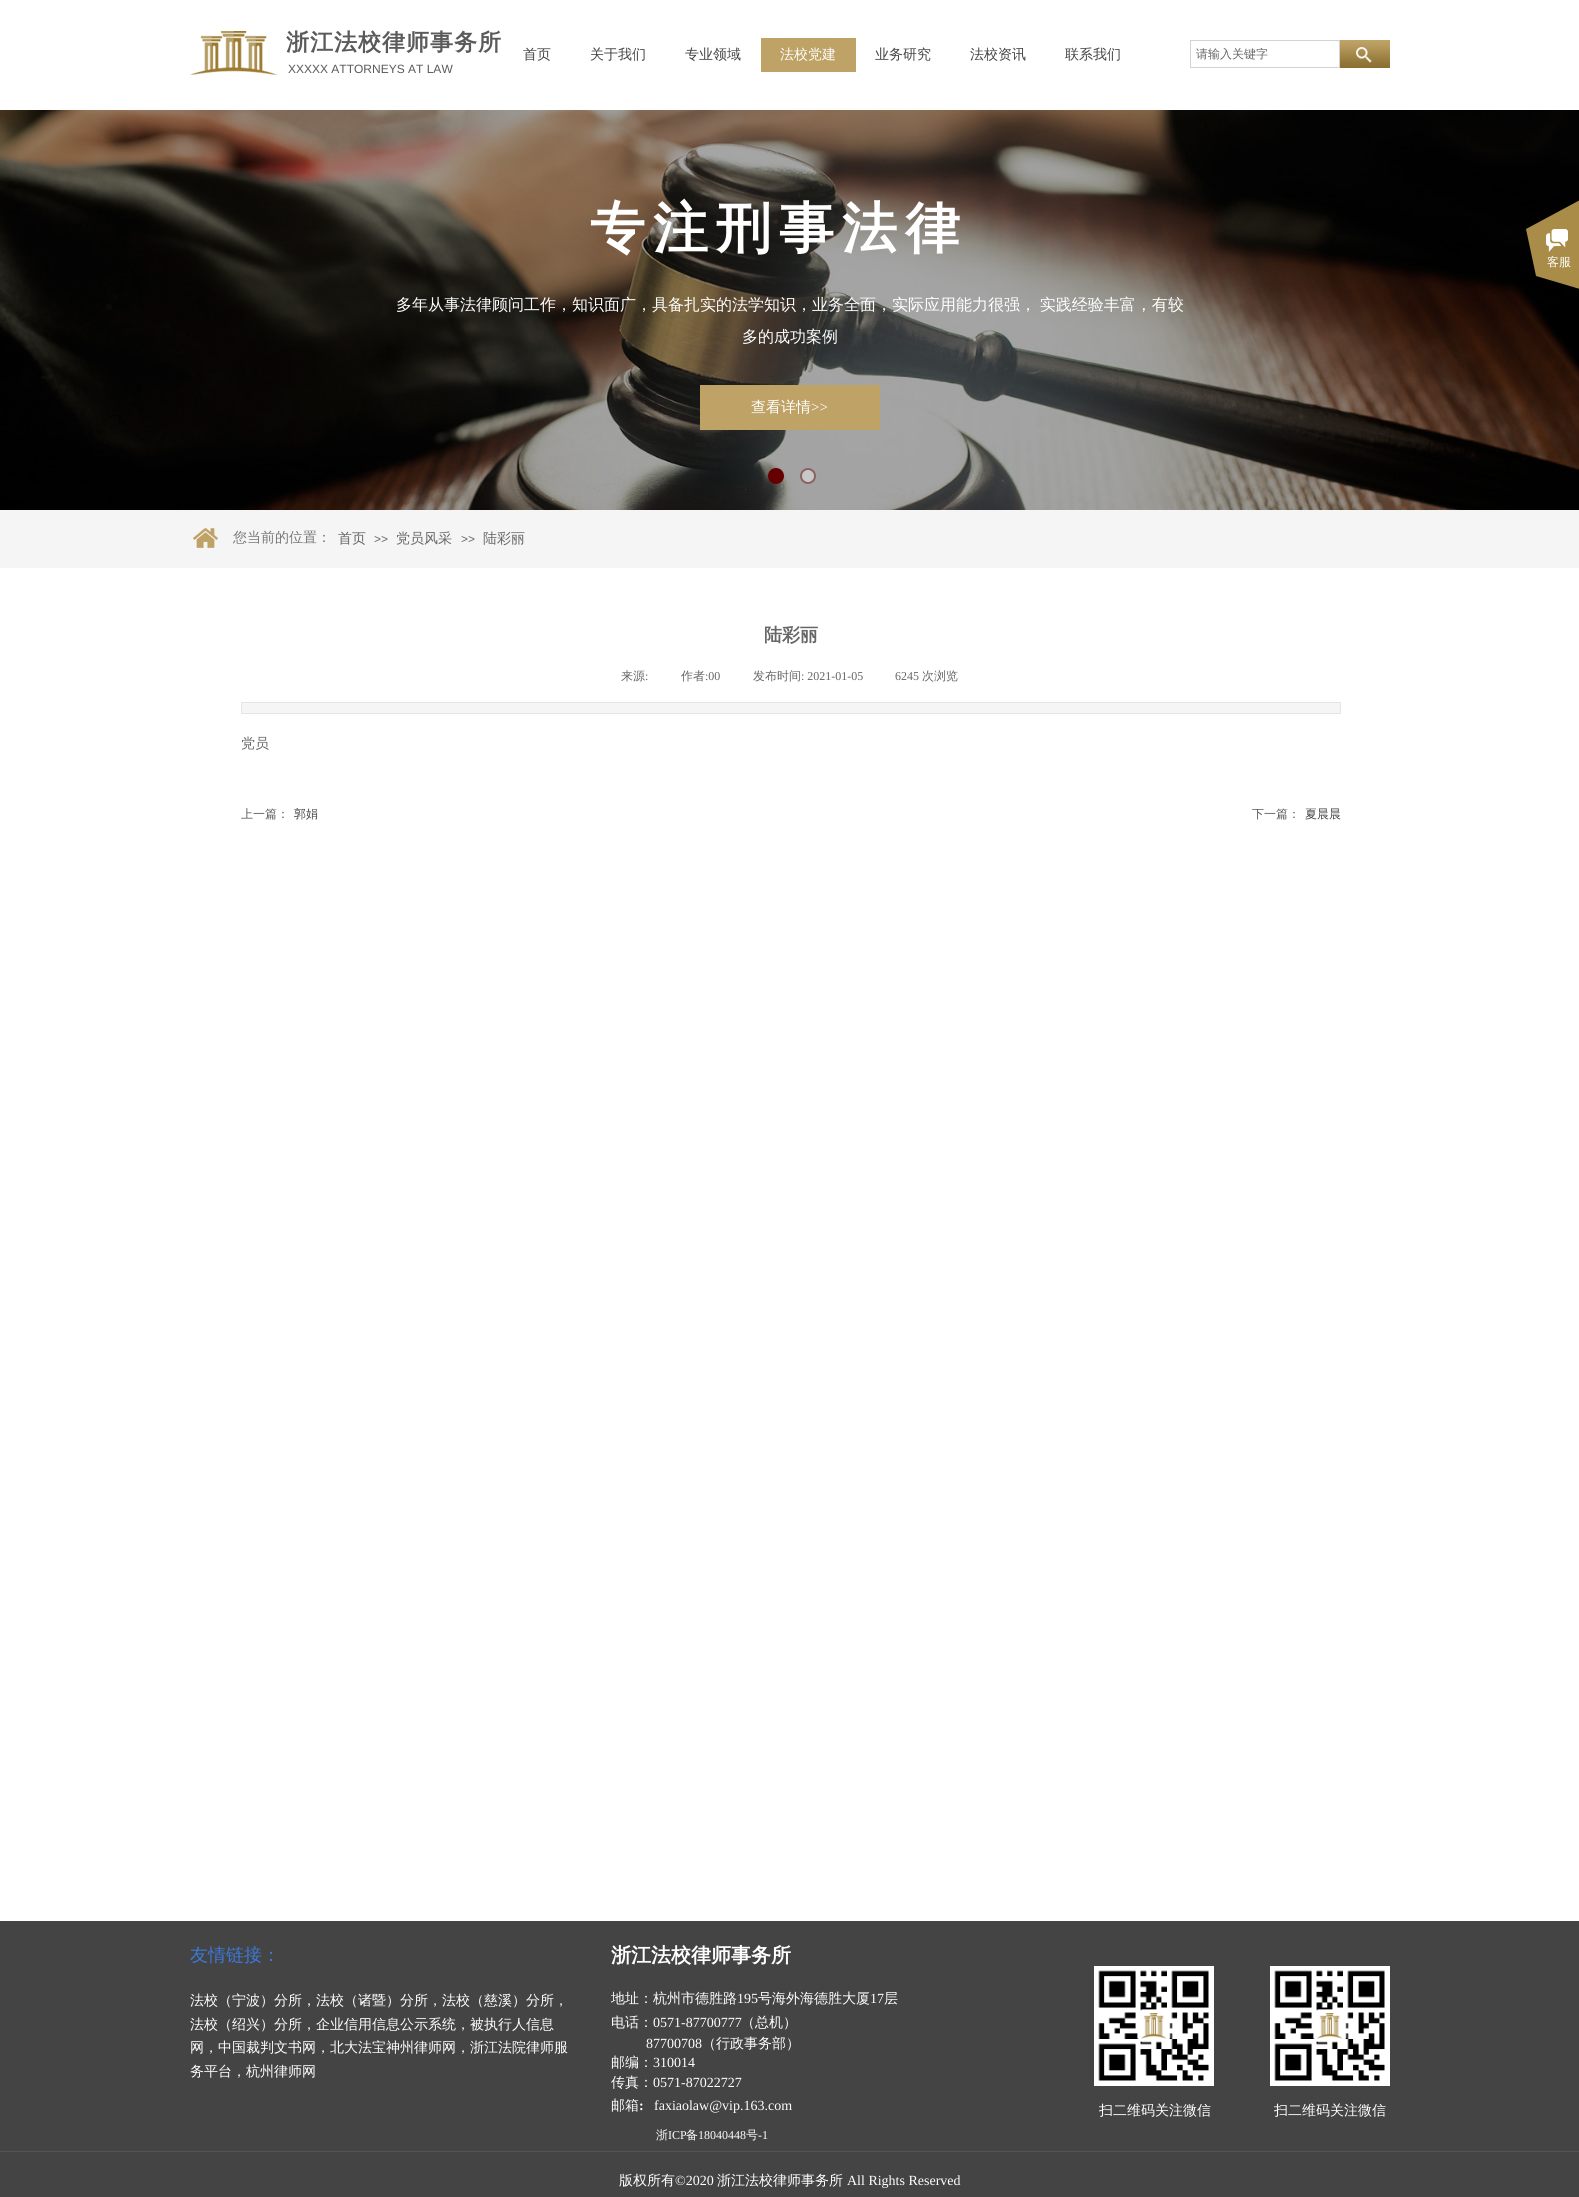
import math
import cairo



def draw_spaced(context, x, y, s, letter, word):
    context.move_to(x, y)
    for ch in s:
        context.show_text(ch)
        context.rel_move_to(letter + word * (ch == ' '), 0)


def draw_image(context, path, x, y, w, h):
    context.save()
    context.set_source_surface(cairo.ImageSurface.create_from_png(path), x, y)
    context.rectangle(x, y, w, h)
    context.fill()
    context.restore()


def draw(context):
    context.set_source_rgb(1, 1, 1)
    context.paint()
    draw_image(context, "images/1.png", 190, 31, 88, 44)
    context.set_source_rgb(191 / 255, 162 / 255, 101 / 255)
    context.rectangle(761, 38, 95, 34)
    context.fill()
    context.rectangle(1190.5, 40.5, 149, 27)
    context.set_source_rgb(211 / 255, 211 / 255, 211 / 255)
    context.set_line_width(1)
    context.stroke()
    draw_image(context, "images/2.png", 1340, 40, 50, 28)
    draw_image(context, "images/3.png", 0, 110, 1579, 400)
    context.set_source_rgb(102 / 255, 0, 0)
    context.arc(776, 476, 7, 0, 2 * math.pi)
    context.fill_preserve()
    context.set_line_width(2)
    context.stroke()
    context.set_source_rgb(200 / 255, 200 / 255, 200 / 255)
    context.arc(808, 476, 7, 0, 2 * math.pi)
    context.fill_preserve()
    context.set_source_rgb(139 / 255, 98 / 255, 98 / 255)
    context.stroke()
    context.set_source_rgb(191 / 255, 162 / 255, 101 / 255)
    context.rectangle(700, 385, 180, 45)
    context.fill()
    context.set_source_rgb(245 / 255, 245 / 255, 245 / 255)
    context.rectangle(0, 510, 1579, 58)
    context.fill()
    draw_image(context, "images/4.png", 193, 528, 25, 20)
    context.rectangle(241.5, 702.5, 1099, 11)
    context.fill_preserve()
    context.set_source_rgb(229 / 255, 229 / 255, 229 / 255)
    context.set_line_width(1)
    context.stroke()
    context.set_source_rgb(68 / 255, 68 / 255, 68 / 255)
    context.rectangle(0, 1921, 1579, 276)
    context.fill()
    context.set_source_rgb(85 / 255, 85 / 255, 85 / 255)
    context.rectangle(0, 2151, 1579, 1)
    context.fill()
    draw_image(context, "images/5.png", 1094, 1966, 120, 120)
    draw_image(context, "images/5.png", 1270, 1966, 120, 120)
    draw_image(context, "images/6.png", 1526, 200, 53, 89)
    context.select_font_face("WenQuanYi Zen Hei", cairo.FontSlant.NORMAL, cairo.FontWeight.BOLD)
    context.set_font_size(23)
    context.set_source_rgb(90 / 255, 90 / 255, 90 / 255)
    draw_spaced(context, 286, 50, "浙江法校律师事务所", 1, 0)
    context.select_font_face("WenQuanYi Zen Hei Medium")
    context.set_font_size(14)
    context.set_source_rgb(68 / 255, 68 / 255, 68 / 255)
    context.move_to(523, 59)
    context.show_text("首页")
    context.move_to(590, 59)
    context.show_text("关于我们")
    context.move_to(685, 59)
    context.show_text("专业领域")
    context.set_source_rgb(1, 1, 1)
    context.move_to(780, 59)
    context.show_text("法校党建")
    context.set_source_rgb(68 / 255, 68 / 255, 68 / 255)
    context.move_to(875, 59)
    context.show_text("业务研究")
    context.move_to(970, 59)
    context.show_text("法校资讯")
    context.move_to(1065, 59)
    context.show_text("联系我们")
    context.set_font_size(12)
    context.set_source_rgb(102 / 255, 102 / 255, 102 / 255)
    context.move_to(1196, 58)
    context.show_text("请输入关键字")
    context.select_font_face("Liberation Sans")
    context.set_source_rgb(90 / 255, 90 / 255, 90 / 255)
    context.move_to(288, 73)
    context.show_text("XXXXX ATTORNEYS AT LAW")
    context.select_font_face("WenQuanYi Zen Hei", cairo.FontSlant.NORMAL, cairo.FontWeight.BOLD)
    context.set_font_size(55)
    context.set_source_rgb(1, 1, 1)
    draw_spaced(context, 590, 247, "专注刑事法律", 8, 0)
    context.select_font_face("WenQuanYi Zen Hei Medium")
    context.set_font_size(16)
    draw_spaced(context, 396, 310, "多年从事法律顾问工作，知识面广，具备扎实的法学知识，业务全面，实际应用能力很强， 实践经验丰富，有较", 0, -1)
    context.move_to(742, 342)
    context.show_text("多的成功案例")
    context.set_font_size(15)
    context.move_to(751, 412)
    context.show_text("查看详情")
    context.select_font_face("Liberation Serif")
    context.move_to(811, 412)
    context.show_text(">>")
    context.select_font_face("WenQuanYi Zen Hei Medium")
    context.set_font_size(14)
    context.set_source_rgb(119 / 255, 119 / 255, 119 / 255)
    context.move_to(233, 542)
    context.show_text("您当前的位置：")
    context.set_source_rgb(102 / 255, 102 / 255, 102 / 255)
    context.move_to(338, 543)
    context.show_text("首页")
    context.select_font_face("Liberation Sans")
    context.set_font_size(12)
    context.move_to(374, 543)
    context.show_text(">>")
    context.select_font_face("WenQuanYi Zen Hei Medium")
    context.set_font_size(14)
    context.move_to(396, 543)
    context.show_text("党员风采")
    context.select_font_face("Liberation Sans")
    context.set_font_size(12)
    context.move_to(461, 543)
    context.show_text(">>")
    context.select_font_face("WenQuanYi Zen Hei Medium")
    context.set_font_size(14)
    context.move_to(483, 543)
    context.show_text("陆彩丽")
    context.select_font_face("WenQuanYi Zen Hei", cairo.FontSlant.NORMAL, cairo.FontWeight.BOLD)
    context.set_font_size(18)
    context.move_to(764, 641)
    context.show_text("陆彩丽")
    context.select_font_face("WenQuanYi Zen Hei Medium")
    context.set_font_size(12)
    context.move_to(621, 680)
    context.show_text("来源")
    context.select_font_face("Liberation Serif")
    context.move_to(645, 680)
    context.show_text(":")
    context.select_font_face("WenQuanYi Zen Hei Medium")
    context.move_to(681, 680)
    context.show_text("作者")
    context.select_font_face("Liberation Serif")
    context.move_to(705, 680)
    context.show_text(":00")
    context.select_font_face("WenQuanYi Zen Hei Medium")
    context.move_to(753, 680)
    context.show_text("发布时间")
    context.select_font_face("Liberation Serif")
    context.move_to(801, 680)
    context.show_text(": 2021-01-05")
    context.move_to(895, 680)
    context.show_text("6245")
    context.select_font_face("WenQuanYi Zen Hei Medium")
    context.move_to(922, 680)
    context.show_text("次浏览")
    context.set_font_size(14)
    context.move_to(241, 748)
    context.show_text("党员")
    context.set_font_size(12)
    context.set_source_rgb(90 / 255, 90 / 255, 90 / 255)
    context.move_to(241, 818)
    context.show_text("上一篇：")
    context.set_source_rgb(68 / 255, 68 / 255, 68 / 255)
    context.move_to(294, 818)
    context.show_text("郭娟")
    context.set_source_rgb(90 / 255, 90 / 255, 90 / 255)
    context.move_to(1252, 818)
    context.show_text("下一篇：")
    context.set_source_rgb(68 / 255, 68 / 255, 68 / 255)
    context.move_to(1305, 818)
    context.show_text("夏晨晨")
    context.set_font_size(18)
    context.set_source_rgb(60 / 255, 120 / 255, 216 / 255)
    context.move_to(190, 1961)
    context.show_text("友情链接：")
    context.select_font_face("WenQuanYi Zen Hei", cairo.FontSlant.NORMAL, cairo.FontWeight.BOLD)
    context.set_font_size(20)
    context.set_source_rgb(1, 1, 1)
    context.move_to(611, 1962)
    context.show_text("浙江法校律师事务所")
    context.save()
    context.rectangle(611, 1925, 367, 196)
    context.clip()
    context.select_font_face("WenQuanYi Zen Hei Medium")
    context.set_font_size(14)
    context.move_to(611, 2003)
    context.show_text("地址：")
    context.restore()
    context.select_font_face("WenQuanYi Zen Hei Medium")
    context.set_font_size(14)
    context.move_to(653, 2003)
    context.show_text("杭州市德胜路")
    context.select_font_face("Liberation Serif")
    context.move_to(737, 2003)
    context.show_text("195")
    context.select_font_face("WenQuanYi Zen Hei Medium")
    context.move_to(758, 2003)
    context.show_text("号海外海德胜大厦")
    context.select_font_face("Liberation Serif")
    context.move_to(870, 2003)
    context.show_text("17")
    context.select_font_face("WenQuanYi Zen Hei Medium")
    context.move_to(884, 2003)
    context.show_text("层")
    context.move_to(611, 2027)
    context.show_text("电话：")
    context.select_font_face("Liberation Serif")
    context.move_to(653, 2027)
    context.show_text("0571-87700777")
    context.select_font_face("WenQuanYi Zen Hei Medium")
    context.move_to(741, 2027)
    context.show_text("（总机）")
    context.select_font_face("Liberation Serif")
    context.move_to(646, 2048)
    context.show_text("87700708")
    context.select_font_face("WenQuanYi Zen Hei Medium")
    context.move_to(702, 2048)
    context.show_text("（行政事务部）")
    context.move_to(611, 2067)
    context.show_text("邮编：")
    context.select_font_face("Liberation Serif")
    context.move_to(653, 2067)
    context.show_text("310014")
    context.select_font_face("WenQuanYi Zen Hei Medium")
    context.move_to(611, 2087)
    context.show_text("传真：")
    context.select_font_face("Liberation Serif")
    context.move_to(653, 2087)
    context.show_text("0571-87022727")
    context.select_font_face("WenQuanYi Zen Hei Medium")
    context.move_to(611, 2110)
    context.show_text("邮箱")
    context.select_font_face("Liberation Serif", cairo.FontSlant.NORMAL, cairo.FontWeight.BOLD)
    context.move_to(639, 2110)
    context.show_text(":")
    context.select_font_face("Liberation Serif")
    context.move_to(654, 2110)
    context.show_text("faxiaolaw@vip.163.com")
    context.select_font_face("WenQuanYi Zen Hei Medium")
    context.move_to(190, 2005)
    context.show_text("法校（宁波）分所，法校（诸暨）分所，法校（慈溪）分所，")
    context.move_to(190, 2029)
    context.show_text("法校（绍兴）分所，企业信用信息公示系统，被执行人信息")
    context.move_to(190, 2052)
    context.show_text("网，中国裁判文书网，北大法宝神州律师网，浙江法院律师服")
    context.move_to(190, 2076)
    context.show_text("务平台，杭州律师网")
    context.move_to(1099, 2115)
    context.show_text("扫二维码关注微信")
    context.move_to(1274, 2115)
    context.show_text("扫二维码关注微信")
    context.set_font_size(12)
    context.move_to(656, 2139)
    context.show_text("浙")
    context.select_font_face("Liberation Serif")
    context.move_to(668, 2139)
    context.show_text("ICP")
    context.select_font_face("WenQuanYi Zen Hei Medium")
    context.move_to(686, 2139)
    context.show_text("备")
    context.select_font_face("Liberation Serif")
    context.move_to(698, 2139)
    context.show_text("18040448")
    context.select_font_face("WenQuanYi Zen Hei Medium")
    context.move_to(746, 2139)
    context.show_text("号")
    context.select_font_face("Liberation Serif")
    context.move_to(758, 2139)
    context.show_text("-1")
    context.select_font_face("WenQuanYi Zen Hei Medium")
    context.set_font_size(14)
    context.move_to(619, 2185)
    context.show_text("版权所有")
    context.select_font_face("Liberation Serif")
    context.move_to(675, 2185)
    context.show_text("©2020")
    context.select_font_face("WenQuanYi Zen Hei Medium")
    context.move_to(717, 2185)
    context.show_text("浙江法校律师事务所")
    context.select_font_face("Liberation Serif")
    context.move_to(847, 2185)
    context.show_text("All Rights Reserved")
    context.select_font_face("WenQuanYi Zen Hei Medium")
    context.set_font_size(12)
    context.move_to(1547, 266)
    context.show_text("客服")


surface = cairo.ImageSurface(cairo.Format.RGB24, 1579, 2197)
context = cairo.Context(surface)
options = cairo.FontOptions()
options.set_hint_metrics(cairo.HintMetrics.OFF)
options.set_hint_style(cairo.HintStyle.NONE)
context.set_font_options(options)
context.set_miter_limit(4)
draw(context)
surface.write_to_png("out.png")
